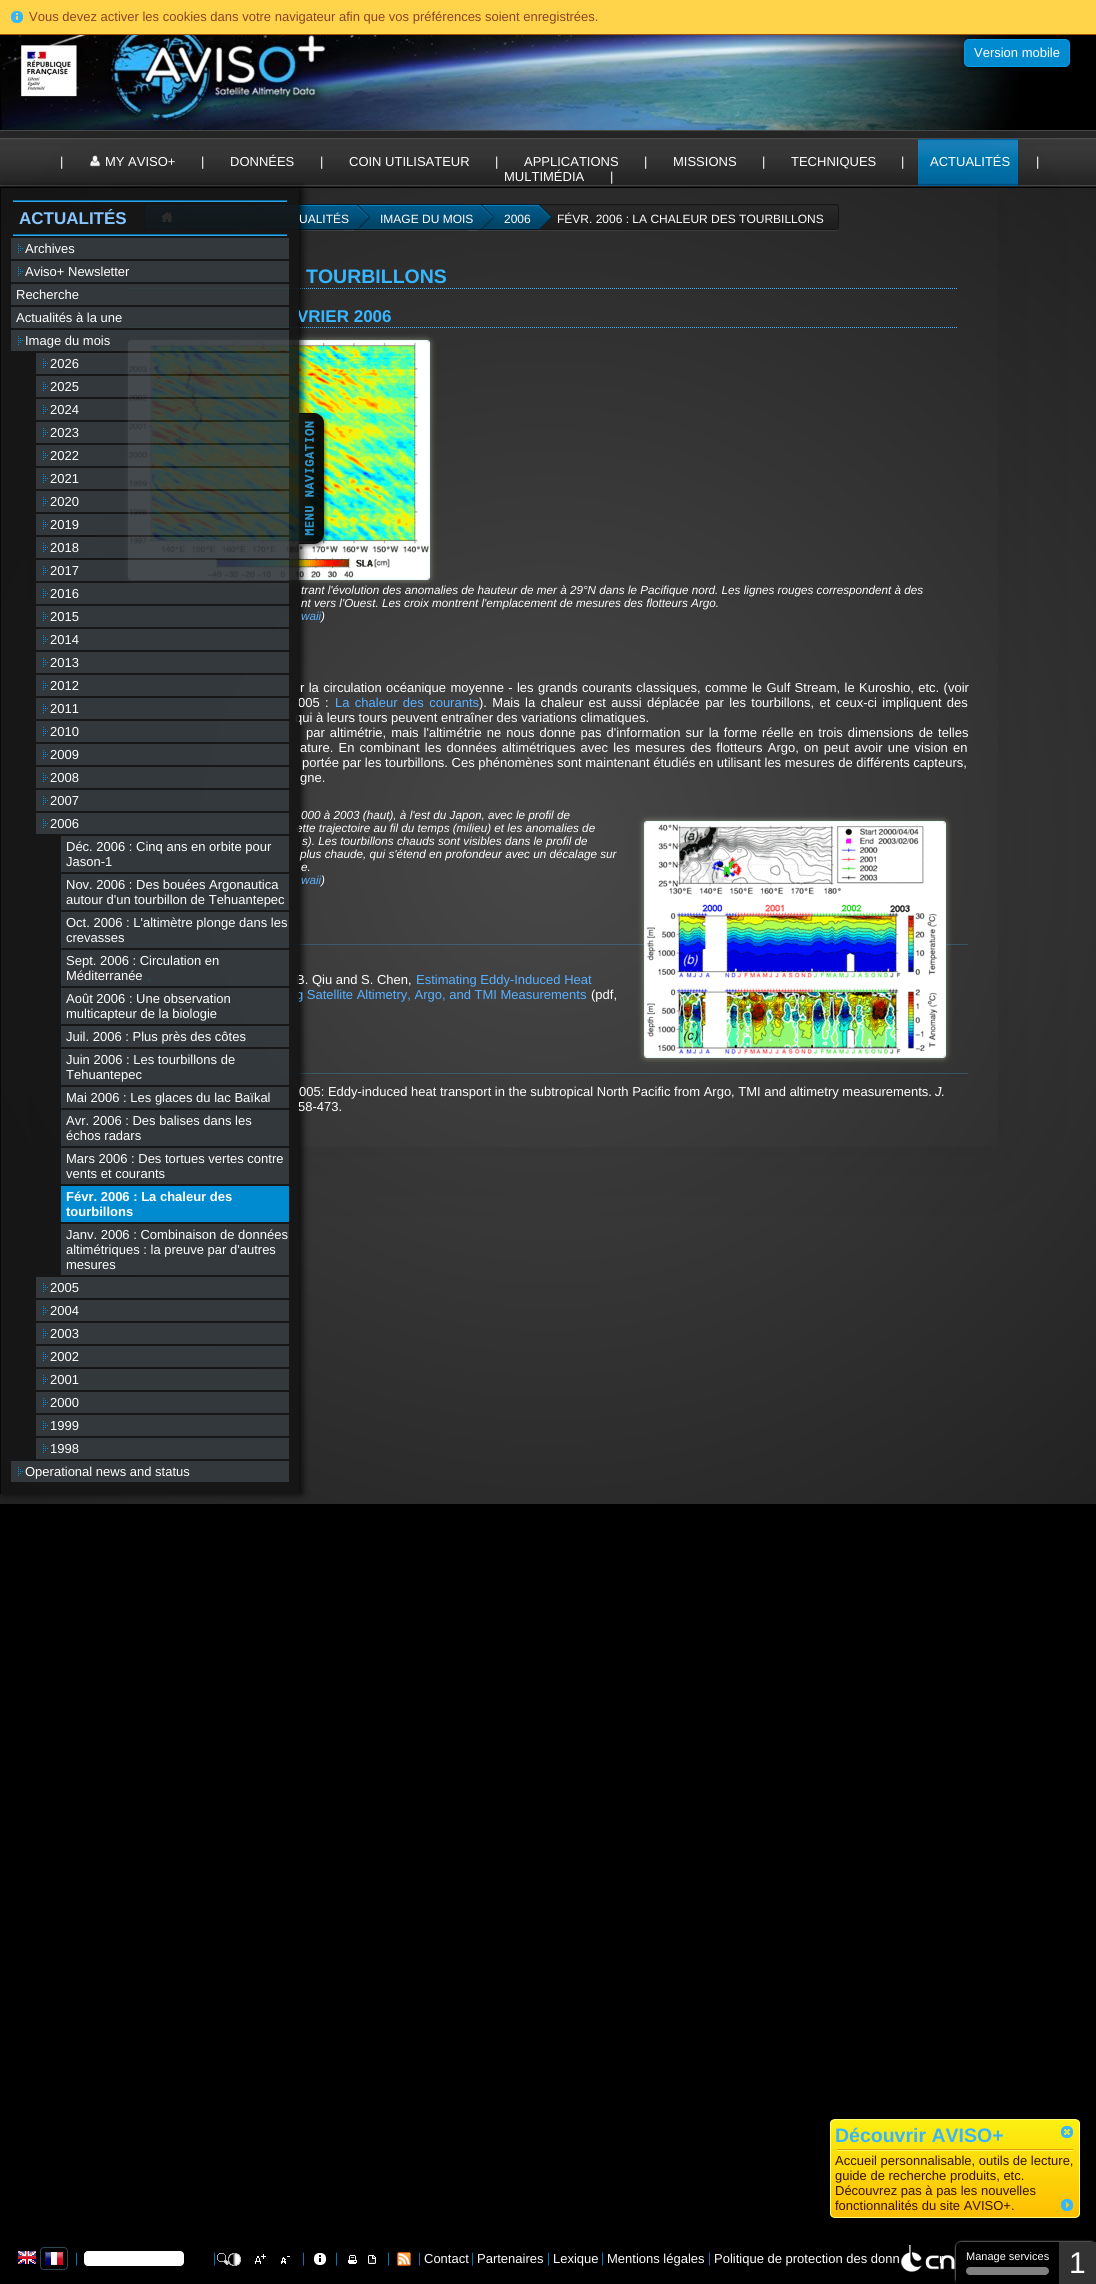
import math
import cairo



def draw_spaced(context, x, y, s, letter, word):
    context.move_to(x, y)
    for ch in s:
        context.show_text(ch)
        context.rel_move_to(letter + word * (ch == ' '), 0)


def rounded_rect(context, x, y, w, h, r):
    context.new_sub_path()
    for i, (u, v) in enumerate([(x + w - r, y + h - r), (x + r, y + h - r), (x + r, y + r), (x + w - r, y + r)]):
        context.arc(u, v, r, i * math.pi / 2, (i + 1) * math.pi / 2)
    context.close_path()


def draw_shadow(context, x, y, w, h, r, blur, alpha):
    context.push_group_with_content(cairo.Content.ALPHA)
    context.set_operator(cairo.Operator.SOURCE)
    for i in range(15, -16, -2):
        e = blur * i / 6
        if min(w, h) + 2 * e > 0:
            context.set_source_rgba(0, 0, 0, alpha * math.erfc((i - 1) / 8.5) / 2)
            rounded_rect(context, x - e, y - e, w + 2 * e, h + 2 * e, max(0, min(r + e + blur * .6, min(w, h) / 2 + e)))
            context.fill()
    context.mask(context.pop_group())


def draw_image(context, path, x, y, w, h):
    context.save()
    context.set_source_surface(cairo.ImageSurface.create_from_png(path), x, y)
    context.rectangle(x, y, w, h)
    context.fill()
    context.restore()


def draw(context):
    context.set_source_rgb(0, 0, 0)
    context.paint()
    draw_image(context, "images/1.png", 0, 35, 1022, 95)
    draw_shadow(context, 967, 39, 106, 28, 5, 4, 0.84)
    context.set_source_rgb(0, 139 / 255, 208 / 255)
    rounded_rect(context, 964.5, 39.5, 105, 27, 4.5)
    context.fill_preserve()
    context.set_source_rgb(0, 158 / 255, 232 / 255)
    context.set_line_width(1)
    context.stroke()
    draw_image(context, "images/5.png", 0, 130, 1096, 57)
    draw_image(context, "images/6.png", 918, 139, 100, 47)
    draw_image(context, "images/7.png", 89, 155, 12, 12)
    gradient = cairo.RadialGradient(548, 846, 0, 548, 846, 856)
    gradient.add_color_stop_rgba(0, 72 / 255, 72 / 255, 72 / 255, 1)
    gradient.add_color_stop_rgba(1, 34 / 255, 34 / 255, 34 / 255, 1)
    context.set_source(gradient)
    context.rectangle(0, 188, 1096, 1316)
    context.fill()
    gradient = cairo.RadialGradient(548, 846, 0, 548, 846, 856)
    gradient.add_color_stop_rgba(0, 68 / 255, 100 / 255, 118 / 255, 1)
    gradient.add_color_stop_rgba(1, 39 / 255, 71 / 255, 89 / 255, 1)
    context.set_source(gradient)
    context.rectangle(128, 1073, 840, 1)
    context.fill()
    context.rectangle(128, 944, 840, 1)
    context.fill()
    context.save()
    context.set_fill_rule(cairo.FillRule.EVEN_ODD)
    context.new_path()
    context.move_to(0, 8)
    context.line_to(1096, 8)
    context.line_to(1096, 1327)
    context.line_to(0, 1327)
    context.close_path()
    context.move_to(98, 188)
    context.line_to(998, 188)
    context.line_to(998, 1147)
    context.line_to(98, 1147)
    context.close_path()
    context.clip()
    context.set_source_rgb(0, 0, 0)
    draw_shadow(context, 98, 188, 900, 959, 0, 59.5, 0.11)
    context.restore()
    context.set_source_rgb(1, 212 / 255, 74 / 255)
    context.rectangle(0, 0, 1096, 34)
    context.fill()
    context.set_source_rgb(163 / 255, 82 / 255, 0)
    context.rectangle(0, 34, 1096, 1)
    context.fill()
    draw_image(context, "images/2.png", 11, 11, 12, 12)
    context.save()
    rounded_rect(context, 830, 2119, 250, 99, 5)
    context.clip()
    gradient = cairo.LinearGradient(955, 2120, 955, 2217)
    gradient.add_color_stop_rgba(0, 252 / 255, 240 / 255, 17 / 255, 1)
    gradient.add_color_stop_rgba(1, 254 / 255, 191 / 255, 1 / 255, 1)
    context.set_source(gradient)
    context.rectangle(830, 2120, 250, 97)
    context.fill()
    context.restore()
    rounded_rect(context, 830.5, 2119.5, 249, 98, 4.5)
    context.set_source_rgb(1, 1, 119 / 255)
    context.stroke()
    draw_image(context, "images/3.png", 1061, 2126, 12, 12)
    context.set_source_rgb(219 / 255, 155 / 255, 18 / 255)
    context.rectangle(837, 2149, 236, 1)
    context.fill()
    context.set_source_rgb(248 / 255, 1, 86 / 255)
    context.rectangle(837, 2150, 236, 1)
    context.fill()
    draw_image(context, "images/4.png", 1061, 2199, 12, 12)
    draw_image(context, "images/15.png", 144, 204, 30, 27)
    draw_image(context, "images/17.png", 163, 204, 86, 27)
    draw_image(context, "images/16.png", 161, 205, 29, 25)
    draw_image(context, "images/19.png", 238, 204, 116, 27)
    draw_image(context, "images/18.png", 233, 205, 32, 24)
    context.new_path()
    context.move_to(128, 288.5)
    context.line_to(958, 288.5)
    context.set_source_rgb(54 / 255, 182 / 255, 1)
    context.set_dash([1, 1])
    context.stroke()
    context.new_path()
    context.move_to(128, 327.5)
    context.line_to(958, 327.5)
    context.stroke()
    context.set_source_rgb(1, 1, 207 / 255)
    draw_shadow(context, 128, 340, 302, 240, 3, 3, 0.44)
    rounded_rect(context, 128.5, 340.5, 301, 239, 2.5)
    context.set_source_rgb(231 / 255, 252 / 255, 1)
    context.set_dash([])
    context.stroke()
    draw_image(context, "images/24.png", 129, 341, 300, 238)
    context.set_source_rgb(0, 138 / 255, 195 / 255)
    context.rectangle(147, 961, 4, 4)
    context.fill()
    context.rectangle(147, 978, 4, 4)
    context.fill()
    context.rectangle(147, 1090, 4, 4)
    context.fill()
    context.save()
    context.set_fill_rule(cairo.FillRule.EVEN_ODD)
    context.new_path()
    context.move_to(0, 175)
    context.line_to(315, 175)
    context.line_to(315, 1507)
    context.line_to(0, 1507)
    context.close_path()
    context.move_to(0, 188)
    context.line_to(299, 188)
    context.line_to(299, 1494)
    context.line_to(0, 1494)
    context.close_path()
    context.clip()
    context.set_source_rgb(0, 0, 0)
    draw_shadow(context, 3, 188, 299, 1306, 0, 4, 0.84)
    context.restore()
    context.set_source_rgb(9 / 255, 7 / 255, 7 / 255)
    context.rectangle(0, 188, 1, 1306)
    context.fill()
    draw_image(context, "images/20.png", 343, 204, 135, 27)
    draw_image(context, "images/18.png", 338, 205, 32, 24)
    draw_image(context, "images/21.png", 467, 204, 69, 27)
    draw_image(context, "images/18.png", 462, 205, 32, 24)
    draw_image(context, "images/23.png", 536, 204, 303, 27)
    draw_image(context, "images/22.png", 520, 204, 32, 25)
    context.set_source_rgb(1, 1, 207 / 255)
    draw_shadow(context, 644, 821, 302, 237, 3, 3, 0.44)
    rounded_rect(context, 644.5, 821.5, 301, 236, 2.5)
    context.set_source_rgb(231 / 255, 252 / 255, 1)
    context.stroke()
    draw_image(context, "images/25.png", 645, 822, 300, 235)
    draw_image(context, "images/27.png", 18, 2251, 18, 13)
    rounded_rect(context, 40.5, 2247.5, 27, 22, 3.5)
    context.set_source_rgb(42 / 255, 70 / 255, 79 / 255)
    context.stroke()
    context.set_source_rgb(1, 1, 1)
    rounded_rect(context, 84, 2251, 100, 15, 4)
    context.fill()
    draw_image(context, "images/30.png", 214, 2252, 1, 14)
    draw_image(context, "images/31.png", 228, 2253, 13, 13)
    context.save()
    context.set_fill_rule(cairo.FillRule.EVEN_ODD)
    context.new_path()
    context.move_to(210, 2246)
    context.line_to(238, 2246)
    context.line_to(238, 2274)
    context.line_to(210, 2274)
    context.close_path()
    context.move_to(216, 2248)
    context.line_to(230, 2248)
    context.curve_to(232, 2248, 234, 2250, 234, 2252)
    context.line_to(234, 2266)
    context.curve_to(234, 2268, 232, 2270, 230, 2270)
    context.line_to(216, 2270)
    context.curve_to(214, 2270, 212, 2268, 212, 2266)
    context.line_to(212, 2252)
    context.curve_to(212, 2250, 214, 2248, 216, 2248)
    context.close_path()
    context.clip()
    context.set_source_rgb(0, 0, 0)
    draw_shadow(context, 213, 2249, 22, 22, 4, 0.5, 0.29)
    context.restore()
    draw_image(context, "images/28.png", 217, 2253, 12, 12)
    draw_image(context, "images/29.png", 45, 2252, 18, 13)
    draw_image(context, "images/30.png", 76, 2252, 1, 14)
    draw_image(context, "images/32.png", 255, 2254, 11, 10)
    draw_image(context, "images/33.png", 281, 2256, 9, 8)
    draw_image(context, "images/30.png", 303, 2252, 1, 14)
    draw_image(context, "images/34.png", 314, 2253, 12, 12)
    draw_image(context, "images/30.png", 336, 2252, 1, 14)
    draw_image(context, "images/35.png", 348, 2255, 9, 9)
    draw_image(context, "images/36.png", 368, 2255, 8, 9)
    draw_image(context, "images/30.png", 388, 2252, 1, 14)
    draw_image(context, "images/37.png", 397, 2252, 14, 14)
    draw_image(context, "images/30.png", 419, 2252, 1, 14)
    draw_image(context, "images/30.png", 472, 2252, 1, 14)
    draw_image(context, "images/30.png", 548, 2252, 1, 14)
    draw_image(context, "images/30.png", 602, 2252, 1, 14)
    draw_image(context, "images/30.png", 709, 2252, 1, 14)
    context.select_font_face("Liberation Sans")
    context.set_font_size(13)
    context.set_source_rgb(141 / 255, 67 / 255, 38 / 255)
    context.move_to(29, 21)
    context.show_text("Vous devez activer les cookies dans votre navigateur afin que vos préférences soient enregistrées.")
    context.select_font_face("Liberation Sans", cairo.FontSlant.NORMAL, cairo.FontWeight.BOLD)
    context.set_font_size(19.5)
    context.set_source_rgb(54 / 255, 182 / 255, 1)
    context.move_to(835, 2142)
    context.show_text("Découvrir AVISO+")
    context.select_font_face("Liberation Sans")
    context.set_font_size(13)
    context.set_source_rgb(54 / 255, 17 / 255, 0)
    context.move_to(835, 2165)
    context.show_text("Accueil personnalisable, outils de lecture,")
    context.move_to(835, 2180)
    context.show_text("guide de recherche produits, etc.")
    context.move_to(835, 2195)
    context.show_text("Découvrez pas à pas les nouvelles")
    context.move_to(835, 2210)
    context.show_text("fonctionnalités du site AVISO+.")
    context.set_source_rgb(1, 1, 1)
    context.move_to(974, 57)
    context.show_text("Version mobile")
    context.move_to(230, 166)
    context.show_text("DONNÉES")
    context.move_to(60, 166)
    context.show_text("|")
    context.move_to(105, 166)
    context.show_text("MY AVISO+")
    context.move_to(201, 166)
    context.show_text("|")
    context.move_to(320, 166)
    context.show_text("|")
    context.move_to(349, 166)
    context.show_text("COIN UTILISATEUR")
    context.move_to(495, 166)
    context.show_text("|")
    context.move_to(524, 166)
    context.show_text("APPLICATIONS")
    context.move_to(644, 166)
    context.show_text("|")
    context.move_to(673, 166)
    context.show_text("MISSIONS")
    context.move_to(762, 166)
    context.show_text("|")
    context.move_to(791, 166)
    context.show_text("TECHNIQUES")
    context.move_to(901, 166)
    context.show_text("|")
    context.move_to(930, 166)
    context.show_text("ACTUALITÉS")
    context.move_to(1036, 166)
    context.show_text("|")
    context.move_to(504, 181)
    context.show_text("MULTIMÉDIA")
    context.move_to(610, 181)
    context.show_text("|")
    context.set_font_size(12)
    context.move_to(299, 223)
    context.show_text("UALITÉS")
    context.move_to(380, 223)
    context.show_text("IMAGE DU MOIS")
    context.move_to(504, 223)
    context.show_text("2006")
    context.move_to(557, 223)
    context.show_text("FÉVR. 2006 : LA CHALEUR DES TOURBILLONS")
    context.select_font_face("Liberation Sans", cairo.FontSlant.NORMAL, cairo.FontWeight.BOLD)
    context.set_font_size(19.5)
    context.set_source_rgb(54 / 255, 182 / 255, 1)
    context.move_to(306, 283)
    context.show_text("TOURBILLONS")
    context.set_font_size(17)
    context.move_to(297, 322)
    context.show_text("VRIER 2006")
    context.select_font_face("Liberation Sans", cairo.FontSlant.ITALIC)
    context.set_font_size(11.7)
    context.set_source_rgb(1, 1, 1)
    context.move_to(301, 594)
    context.show_text("trant l'évolution des anomalies de hauteur de mer à 29°N dans le Pacifique nord. Les lignes rouges correspondent à des")
    context.move_to(301, 607)
    context.show_text("nt vers l'Ouest. Les croix montrent l'emplacement de mesures des flotteurs Argo.")
    context.set_source_rgb(89 / 255, 176 / 255, 1)
    context.move_to(301, 620)
    context.show_text("waii")
    context.set_source_rgb(1, 1, 1)
    context.move_to(321, 620)
    context.show_text(")")
    context.select_font_face("Liberation Sans")
    context.set_font_size(13)
    draw_spaced(context, 300, 692, "r la circulation océanique moyenne - les grands courants classiques, comme le Gulf Stream, le Kuroshio, etc. (voir", 0, 0.75)
    draw_spaced(context, 298, 707, "005 :", 0, 1.75)
    context.set_source_rgb(89 / 255, 176 / 255, 1)
    draw_spaced(context, 335, 707, "La chaleur des courants", 0, 1.75)
    context.set_source_rgb(1, 1, 1)
    draw_spaced(context, 479, 707, "). Mais la chaleur est aussi déplacée par les tourbillons, et ceux-ci impliquent des", 0, 1.75)
    context.move_to(295, 722)
    context.show_text("qui à leurs tours peuvent entraîner des variations climatiques.")
    draw_spaced(context, 306, 737, "par altimétrie, mais l'altimétrie ne nous donne pas d'information sur la forme réelle en trois dimensions de telles", 0, 1.4)
    draw_spaced(context, 300, 752, "ature. En combinant les données altimétriques avec les mesures des flotteurs Argo, on peut avoir une vision en", 0, 1.6)
    context.move_to(302, 767)
    context.show_text("portée par les tourbillons. Ces phénomènes sont maintenant étudiés en utilisant les mesures de différents capteurs,")
    context.move_to(300, 782)
    context.show_text("gne.")
    context.select_font_face("Liberation Sans", cairo.FontSlant.ITALIC)
    context.set_font_size(11.7)
    context.move_to(301, 819)
    context.show_text("000 à 2003 (haut), à l'est du Japon, avec le profil de")
    context.move_to(296, 832)
    context.show_text("ette trajectoire au fil du temps (milieu) et les anomalies de")
    context.move_to(302, 845)
    context.show_text("s). Les tourbillons chauds sont visibles dans le profil de")
    context.move_to(300, 858)
    context.show_text("plus chaude, qui s'étend en profondeur avec un décalage sur")
    context.move_to(301, 871)
    context.show_text("e.")
    context.set_source_rgb(89 / 255, 176 / 255, 1)
    context.move_to(301, 884)
    context.show_text("waii")
    context.set_source_rgb(1, 1, 1)
    context.move_to(321, 884)
    context.show_text(")")
    context.select_font_face("Liberation Sans")
    context.set_font_size(13)
    context.move_to(296, 984)
    context.show_text("B. Qiu and S. Chen,")
    context.set_source_rgb(89 / 255, 176 / 255, 1)
    context.move_to(416, 984)
    context.show_text("Estimating Eddy-Induced Heat")
    context.move_to(296, 999)
    context.show_text("g Satellite Altimetry, Argo, and TMI Measurements")
    context.set_source_rgb(1, 1, 1)
    context.move_to(591, 999)
    context.show_text("(pdf,")
    context.move_to(299, 1096)
    context.show_text("005: Eddy-induced heat transport in the subtropical North Pacific from Argo, TMI and altimetry measurements.")
    context.select_font_face("Liberation Sans", cairo.FontSlant.ITALIC)
    context.move_to(935, 1096)
    context.show_text("J.")
    context.select_font_face("Liberation Sans")
    context.move_to(298, 1111)
    context.show_text("58-473.")
    context.set_source_rgba(20 / 255, 20 / 255, 20 / 255, 0.9)
    context.rectangle(1, 188, 298, 1306)
    context.fill()
    draw_image(context, "images/14.png", 298, 412, 30, 137)
    context.set_source_rgb(50 / 255, 56 / 255, 59 / 255)
    context.rectangle(11, 1461, 278, 21)
    context.fill()
    context.set_source_rgb(1, 1, 1)
    context.move_to(25, 1476)
    context.show_text("Operational news and status")
    draw_image(context, "images/8.png", 18, 1467, 5, 9)
    context.set_source_rgb(50 / 255, 56 / 255, 59 / 255)
    context.rectangle(36, 1438, 253, 21)
    context.fill()
    context.set_source_rgb(1, 1, 1)
    context.move_to(50, 1453)
    context.show_text("1998")
    draw_image(context, "images/8.png", 43, 1444, 5, 9)
    context.set_source_rgb(50 / 255, 56 / 255, 59 / 255)
    context.rectangle(36, 1415, 253, 21)
    context.fill()
    context.set_source_rgb(1, 1, 1)
    context.move_to(50, 1430)
    context.show_text("1999")
    draw_image(context, "images/8.png", 43, 1421, 5, 9)
    context.set_source_rgb(50 / 255, 56 / 255, 59 / 255)
    context.rectangle(36, 1392, 253, 21)
    context.fill()
    context.set_source_rgb(1, 1, 1)
    context.move_to(50, 1407)
    context.show_text("2000")
    draw_image(context, "images/8.png", 43, 1398, 5, 9)
    context.set_source_rgb(51 / 255, 56 / 255, 59 / 255)
    context.rectangle(36, 1369, 253, 21)
    context.fill()
    context.set_source_rgb(1, 1, 1)
    context.move_to(50, 1384)
    context.show_text("2001")
    draw_image(context, "images/13.png", 43, 1375, 5, 9)
    context.set_source_rgb(51 / 255, 57 / 255, 60 / 255)
    context.rectangle(36, 1346, 253, 21)
    context.fill()
    context.set_source_rgb(1, 1, 1)
    context.move_to(50, 1361)
    context.show_text("2002")
    draw_image(context, "images/12.png", 43, 1352, 5, 9)
    context.set_source_rgb(51 / 255, 57 / 255, 60 / 255)
    context.rectangle(36, 1323, 253, 21)
    context.fill()
    context.set_source_rgb(1, 1, 1)
    context.move_to(50, 1338)
    context.show_text("2003")
    draw_image(context, "images/12.png", 43, 1329, 5, 9)
    context.set_source_rgb(51 / 255, 57 / 255, 60 / 255)
    context.rectangle(36, 1300, 253, 21)
    context.fill()
    context.set_source_rgb(1, 1, 1)
    context.move_to(50, 1315)
    context.show_text("2004")
    draw_image(context, "images/12.png", 43, 1306, 5, 9)
    context.set_source_rgb(51 / 255, 57 / 255, 60 / 255)
    context.rectangle(36, 1277, 253, 21)
    context.fill()
    context.set_source_rgb(1, 1, 1)
    context.move_to(50, 1292)
    context.show_text("2005")
    draw_image(context, "images/12.png", 43, 1283, 5, 9)
    context.set_source_rgb(51 / 255, 57 / 255, 60 / 255)
    context.rectangle(61, 1224, 228, 51)
    context.fill()
    context.set_source_rgb(1, 1, 1)
    context.move_to(66, 1269)
    context.show_text("mesures")
    context.move_to(66, 1254)
    context.show_text("altimétriques : la preuve par d'autres")
    context.move_to(66, 1239)
    context.show_text("Janv. 2006 : Combinaison de données")
    context.set_source_rgb(0, 139 / 255, 208 / 255)
    context.rectangle(61, 1186, 228, 36)
    context.fill()
    context.select_font_face("Liberation Sans", cairo.FontSlant.NORMAL, cairo.FontWeight.BOLD)
    context.set_source_rgb(1, 1, 1)
    context.move_to(66, 1216)
    context.show_text("tourbillons")
    context.move_to(66, 1201)
    context.show_text("Févr. 2006 : La chaleur des")
    context.set_source_rgb(51 / 255, 57 / 255, 60 / 255)
    context.rectangle(61, 1148, 228, 36)
    context.fill()
    context.select_font_face("Liberation Sans")
    context.set_source_rgb(1, 1, 1)
    context.move_to(66, 1178)
    context.show_text("vents et courants")
    context.move_to(66, 1163)
    context.show_text("Mars 2006 : Des tortues vertes contre")
    context.set_source_rgba(199 / 255, 236 / 255, 1, 0.16)
    context.rectangle(61, 1110, 228, 36)
    context.fill()
    context.set_source_rgb(1, 1, 1)
    context.move_to(66, 1140)
    context.show_text("échos radars")
    context.move_to(66, 1125)
    context.show_text("Avr. 2006 : Des balises dans les")
    context.set_source_rgba(199 / 255, 236 / 255, 1, 0.16)
    context.rectangle(61, 1087, 228, 21)
    context.fill()
    context.set_source_rgb(1, 1, 1)
    context.move_to(66, 1102)
    context.show_text("Mai 2006 : Les glaces du lac Baïkal")
    context.set_source_rgba(199 / 255, 236 / 255, 1, 0.16)
    context.rectangle(61, 1049, 228, 36)
    context.fill()
    context.set_source_rgb(1, 1, 1)
    context.move_to(66, 1079)
    context.show_text("Tehuantepec")
    context.move_to(66, 1064)
    context.show_text("Juin 2006 : Les tourbillons de")
    context.set_source_rgb(51 / 255, 57 / 255, 60 / 255)
    context.rectangle(61, 1026, 228, 21)
    context.fill()
    context.set_source_rgb(1, 1, 1)
    context.move_to(66, 1041)
    context.show_text("Juil. 2006 : Plus près des côtes")
    context.set_source_rgba(199 / 255, 236 / 255, 1, 0.16)
    context.rectangle(61, 988, 228, 36)
    context.fill()
    context.set_source_rgb(1, 1, 1)
    context.move_to(66, 1018)
    context.show_text("multicapteur de la biologie")
    context.move_to(66, 1003)
    context.show_text("Août 2006 : Une observation")
    context.set_source_rgba(199 / 255, 236 / 255, 1, 0.16)
    context.rectangle(61, 950, 228, 36)
    context.fill()
    context.set_source_rgb(1, 1, 1)
    context.move_to(66, 980)
    context.show_text("Méditerranée")
    context.move_to(66, 965)
    context.show_text("Sept. 2006 : Circulation en")
    context.set_source_rgba(199 / 255, 236 / 255, 1, 0.16)
    context.rectangle(61, 912, 228, 36)
    context.fill()
    context.set_source_rgb(1, 1, 1)
    context.move_to(66, 942)
    context.show_text("crevasses")
    context.move_to(66, 927)
    context.show_text("Oct. 2006 : L'altimètre plonge dans les")
    context.set_source_rgba(199 / 255, 236 / 255, 1, 0.16)
    context.rectangle(61, 874, 228, 36)
    context.fill()
    context.set_source_rgb(1, 1, 1)
    context.move_to(66, 904)
    context.show_text("autour d'un tourbillon de Tehuantepec")
    context.move_to(66, 889)
    context.show_text("Nov. 2006 : Des bouées Argonautica")
    context.set_source_rgba(199 / 255, 236 / 255, 1, 0.16)
    context.rectangle(61, 836, 228, 36)
    context.fill()
    context.set_source_rgb(1, 1, 1)
    context.move_to(66, 866)
    context.show_text("Jason-1")
    context.move_to(66, 851)
    context.show_text("Déc. 2006 : Cinq ans en orbite pour")
    context.set_source_rgba(199 / 255, 236 / 255, 1, 0.16)
    context.rectangle(36, 813, 253, 21)
    context.fill()
    context.set_source_rgb(1, 1, 1)
    context.move_to(50, 828)
    context.show_text("2006")
    draw_image(context, "images/12.png", 43, 819, 5, 9)
    context.set_source_rgba(199 / 255, 236 / 255, 1, 0.16)
    context.rectangle(36, 790, 253, 21)
    context.fill()
    context.set_source_rgb(1, 1, 1)
    context.move_to(50, 805)
    context.show_text("2007")
    draw_image(context, "images/12.png", 43, 796, 5, 9)
    context.set_source_rgba(199 / 255, 236 / 255, 1, 0.16)
    context.rectangle(36, 767, 253, 21)
    context.fill()
    context.set_source_rgb(1, 1, 1)
    context.move_to(50, 782)
    context.show_text("2008")
    draw_image(context, "images/12.png", 43, 773, 5, 9)
    context.set_source_rgba(199 / 255, 236 / 255, 1, 0.16)
    context.rectangle(36, 744, 253, 21)
    context.fill()
    context.set_source_rgb(1, 1, 1)
    context.move_to(50, 759)
    context.show_text("2009")
    draw_image(context, "images/12.png", 43, 750, 5, 9)
    context.set_source_rgba(199 / 255, 236 / 255, 1, 0.16)
    context.rectangle(36, 721, 253, 21)
    context.fill()
    context.set_source_rgb(1, 1, 1)
    context.move_to(50, 736)
    context.show_text("2010")
    draw_image(context, "images/12.png", 43, 727, 5, 9)
    context.set_source_rgba(199 / 255, 236 / 255, 1, 0.16)
    context.rectangle(36, 698, 253, 21)
    context.fill()
    context.set_source_rgb(1, 1, 1)
    context.move_to(50, 713)
    context.show_text("2011")
    draw_image(context, "images/12.png", 43, 704, 5, 9)
    context.set_source_rgba(199 / 255, 236 / 255, 1, 0.16)
    context.rectangle(36, 675, 253, 21)
    context.fill()
    context.set_source_rgb(1, 1, 1)
    context.move_to(50, 690)
    context.show_text("2012")
    draw_image(context, "images/12.png", 43, 681, 5, 9)
    context.set_source_rgb(51 / 255, 57 / 255, 60 / 255)
    context.rectangle(36, 652, 253, 21)
    context.fill()
    context.set_source_rgb(1, 1, 1)
    context.move_to(50, 667)
    context.show_text("2013")
    draw_image(context, "images/12.png", 43, 658, 5, 9)
    context.set_source_rgb(51 / 255, 57 / 255, 60 / 255)
    context.rectangle(36, 629, 253, 21)
    context.fill()
    context.set_source_rgb(1, 1, 1)
    context.move_to(50, 644)
    context.show_text("2014")
    draw_image(context, "images/12.png", 43, 635, 5, 9)
    context.set_source_rgba(199 / 255, 236 / 255, 1, 0.16)
    context.rectangle(36, 606, 253, 21)
    context.fill()
    context.set_source_rgb(1, 1, 1)
    context.move_to(50, 621)
    context.show_text("2015")
    draw_image(context, "images/12.png", 43, 612, 5, 9)
    context.set_source_rgba(199 / 255, 236 / 255, 1, 0.16)
    context.rectangle(36, 583, 253, 21)
    context.fill()
    context.set_source_rgb(1, 1, 1)
    context.move_to(50, 598)
    context.show_text("2016")
    draw_image(context, "images/12.png", 43, 589, 5, 9)
    context.set_source_rgba(199 / 255, 236 / 255, 1, 0.16)
    context.rectangle(36, 560, 253, 21)
    context.fill()
    context.set_source_rgb(1, 1, 1)
    context.move_to(50, 575)
    context.show_text("2017")
    draw_image(context, "images/12.png", 43, 566, 5, 9)
    context.set_source_rgba(199 / 255, 236 / 255, 1, 0.16)
    context.rectangle(36, 537, 253, 21)
    context.fill()
    context.set_source_rgb(1, 1, 1)
    context.move_to(50, 552)
    context.show_text("2018")
    draw_image(context, "images/12.png", 43, 543, 5, 9)
    context.set_source_rgba(199 / 255, 236 / 255, 1, 0.16)
    context.rectangle(36, 514, 253, 21)
    context.fill()
    context.set_source_rgb(1, 1, 1)
    context.move_to(50, 529)
    context.show_text("2019")
    draw_image(context, "images/12.png", 43, 520, 5, 9)
    context.set_source_rgba(199 / 255, 236 / 255, 1, 0.16)
    context.rectangle(36, 491, 253, 21)
    context.fill()
    context.set_source_rgb(1, 1, 1)
    context.move_to(50, 506)
    context.show_text("2020")
    draw_image(context, "images/12.png", 43, 497, 5, 9)
    context.set_source_rgba(199 / 255, 236 / 255, 1, 0.16)
    context.rectangle(36, 468, 253, 21)
    context.fill()
    context.set_source_rgb(1, 1, 1)
    context.move_to(50, 483)
    context.show_text("2021")
    draw_image(context, "images/11.png", 43, 474, 5, 9)
    context.set_source_rgba(199 / 255, 236 / 255, 1, 0.16)
    context.rectangle(36, 445, 253, 21)
    context.fill()
    context.set_source_rgb(1, 1, 1)
    context.move_to(50, 460)
    context.show_text("2022")
    draw_image(context, "images/10.png", 43, 451, 5, 9)
    context.set_source_rgba(199 / 255, 236 / 255, 1, 0.16)
    context.rectangle(36, 422, 253, 21)
    context.fill()
    context.set_source_rgb(1, 1, 1)
    context.move_to(50, 437)
    context.show_text("2023")
    draw_image(context, "images/9.png", 43, 428, 5, 9)
    context.set_source_rgba(199 / 255, 236 / 255, 1, 0.16)
    context.rectangle(36, 399, 253, 21)
    context.fill()
    context.set_source_rgb(1, 1, 1)
    context.move_to(50, 414)
    context.show_text("2024")
    draw_image(context, "images/8.png", 43, 405, 5, 9)
    context.set_source_rgba(199 / 255, 236 / 255, 1, 0.16)
    context.rectangle(36, 376, 253, 21)
    context.fill()
    context.set_source_rgb(1, 1, 1)
    context.move_to(50, 391)
    context.show_text("2025")
    draw_image(context, "images/8.png", 43, 382, 5, 9)
    context.set_source_rgba(199 / 255, 236 / 255, 1, 0.16)
    context.rectangle(36, 353, 253, 21)
    context.fill()
    context.set_source_rgb(1, 1, 1)
    context.move_to(50, 368)
    context.show_text("2026")
    draw_image(context, "images/8.png", 43, 359, 5, 9)
    context.set_source_rgba(199 / 255, 236 / 255, 1, 0.16)
    context.rectangle(11, 330, 278, 21)
    context.fill()
    context.set_source_rgb(1, 1, 1)
    context.move_to(25, 345)
    context.show_text("Image du mois")
    draw_image(context, "images/8.png", 18, 336, 5, 9)
    context.set_source_rgba(199 / 255, 236 / 255, 1, 0.16)
    context.rectangle(11, 307, 278, 21)
    context.fill()
    context.set_source_rgb(1, 1, 1)
    context.move_to(16, 322)
    context.show_text("Actualités à la une")
    context.set_source_rgba(199 / 255, 236 / 255, 1, 0.16)
    context.rectangle(11, 284, 278, 21)
    context.fill()
    context.set_source_rgb(1, 1, 1)
    context.move_to(16, 299)
    context.show_text("Recherche")
    context.set_source_rgba(199 / 255, 236 / 255, 1, 0.16)
    context.rectangle(11, 261, 278, 21)
    context.fill()
    context.set_source_rgb(1, 1, 1)
    context.move_to(25, 276)
    context.show_text("Aviso+ Newsletter")
    draw_image(context, "images/8.png", 18, 267, 5, 9)
    context.set_source_rgb(50 / 255, 56 / 255, 59 / 255)
    context.rectangle(11, 238, 278, 21)
    context.fill()
    context.set_source_rgb(1, 1, 1)
    context.move_to(25, 253)
    context.show_text("Archives")
    draw_image(context, "images/8.png", 18, 244, 5, 9)
    context.select_font_face("Liberation Sans", cairo.FontSlant.NORMAL, cairo.FontWeight.BOLD)
    context.set_font_size(17)
    context.set_source_rgb(134 / 255, 197 / 255, 1)
    context.move_to(19, 224)
    context.show_text("ACTUALITÉS")
    context.set_source_rgb(49 / 255, 165 / 255, 228 / 255)
    context.rectangle(13, 235, 274, 1)
    context.fill()
    context.set_source_rgb(0, 107 / 255, 164 / 255)
    context.rectangle(13, 234, 274, 1)
    context.fill()
    context.set_source_rgb(49 / 255, 165 / 255, 228 / 255)
    context.rectangle(13, 201, 274, 1)
    context.fill()
    context.set_source_rgb(0, 107 / 255, 164 / 255)
    context.rectangle(13, 200, 274, 1)
    context.fill()
    context.select_font_face("Liberation Sans")
    context.set_font_size(13)
    context.set_source_rgb(1, 1, 1)
    context.move_to(424, 2263)
    context.show_text("Contact")
    context.move_to(477, 2263)
    context.show_text("Partenaires")
    context.move_to(553, 2263)
    context.show_text("Lexique")
    context.move_to(607, 2263)
    context.show_text("Mentions légales")
    context.move_to(714, 2263)
    context.show_text("Politique de protection des donn")
    context.move_to(939, 2263)
    context.show_text("r")
    draw_image(context, "images/26.png", 901, 2245, 54, 27)
    context.set_source_rgb(221 / 255, 221 / 255, 221 / 255)
    draw_shadow(context, 956, 2242, 140, 42, 5, 1, 1)
    context.set_source_rgb(0, 0, 0)
    context.new_path()
    context.move_to(961, 2242)
    context.line_to(1096, 2242)
    context.line_to(1096, 2284)
    context.line_to(956, 2284)
    context.line_to(956, 2247)
    context.curve_to(956, 2244, 958, 2242, 961, 2242)
    context.close_path()
    context.fill()
    context.set_font_size(11)
    context.set_source_rgb(1, 1, 1)
    context.move_to(966, 2260)
    context.show_text("Manage services")
    context.set_source_rgb(128 / 255, 128 / 255, 128 / 255)
    rounded_rect(context, 966, 2267, 83, 8, 4)
    context.fill()
    context.set_source_rgb(51 / 255, 51 / 255, 51 / 255)
    context.rectangle(1059, 2242, 37, 42)
    context.fill()
    context.set_font_size(30)
    context.set_source_rgb(1, 1, 1)
    context.move_to(1069, 2273)
    context.show_text("1")


surface = cairo.ImageSurface(cairo.Format.RGB24, 1096, 2284)
context = cairo.Context(surface)
options = cairo.FontOptions()
options.set_hint_metrics(cairo.HintMetrics.OFF)
options.set_hint_style(cairo.HintStyle.NONE)
context.set_font_options(options)
context.set_miter_limit(4)
draw(context)
surface.write_to_png("out.png")
